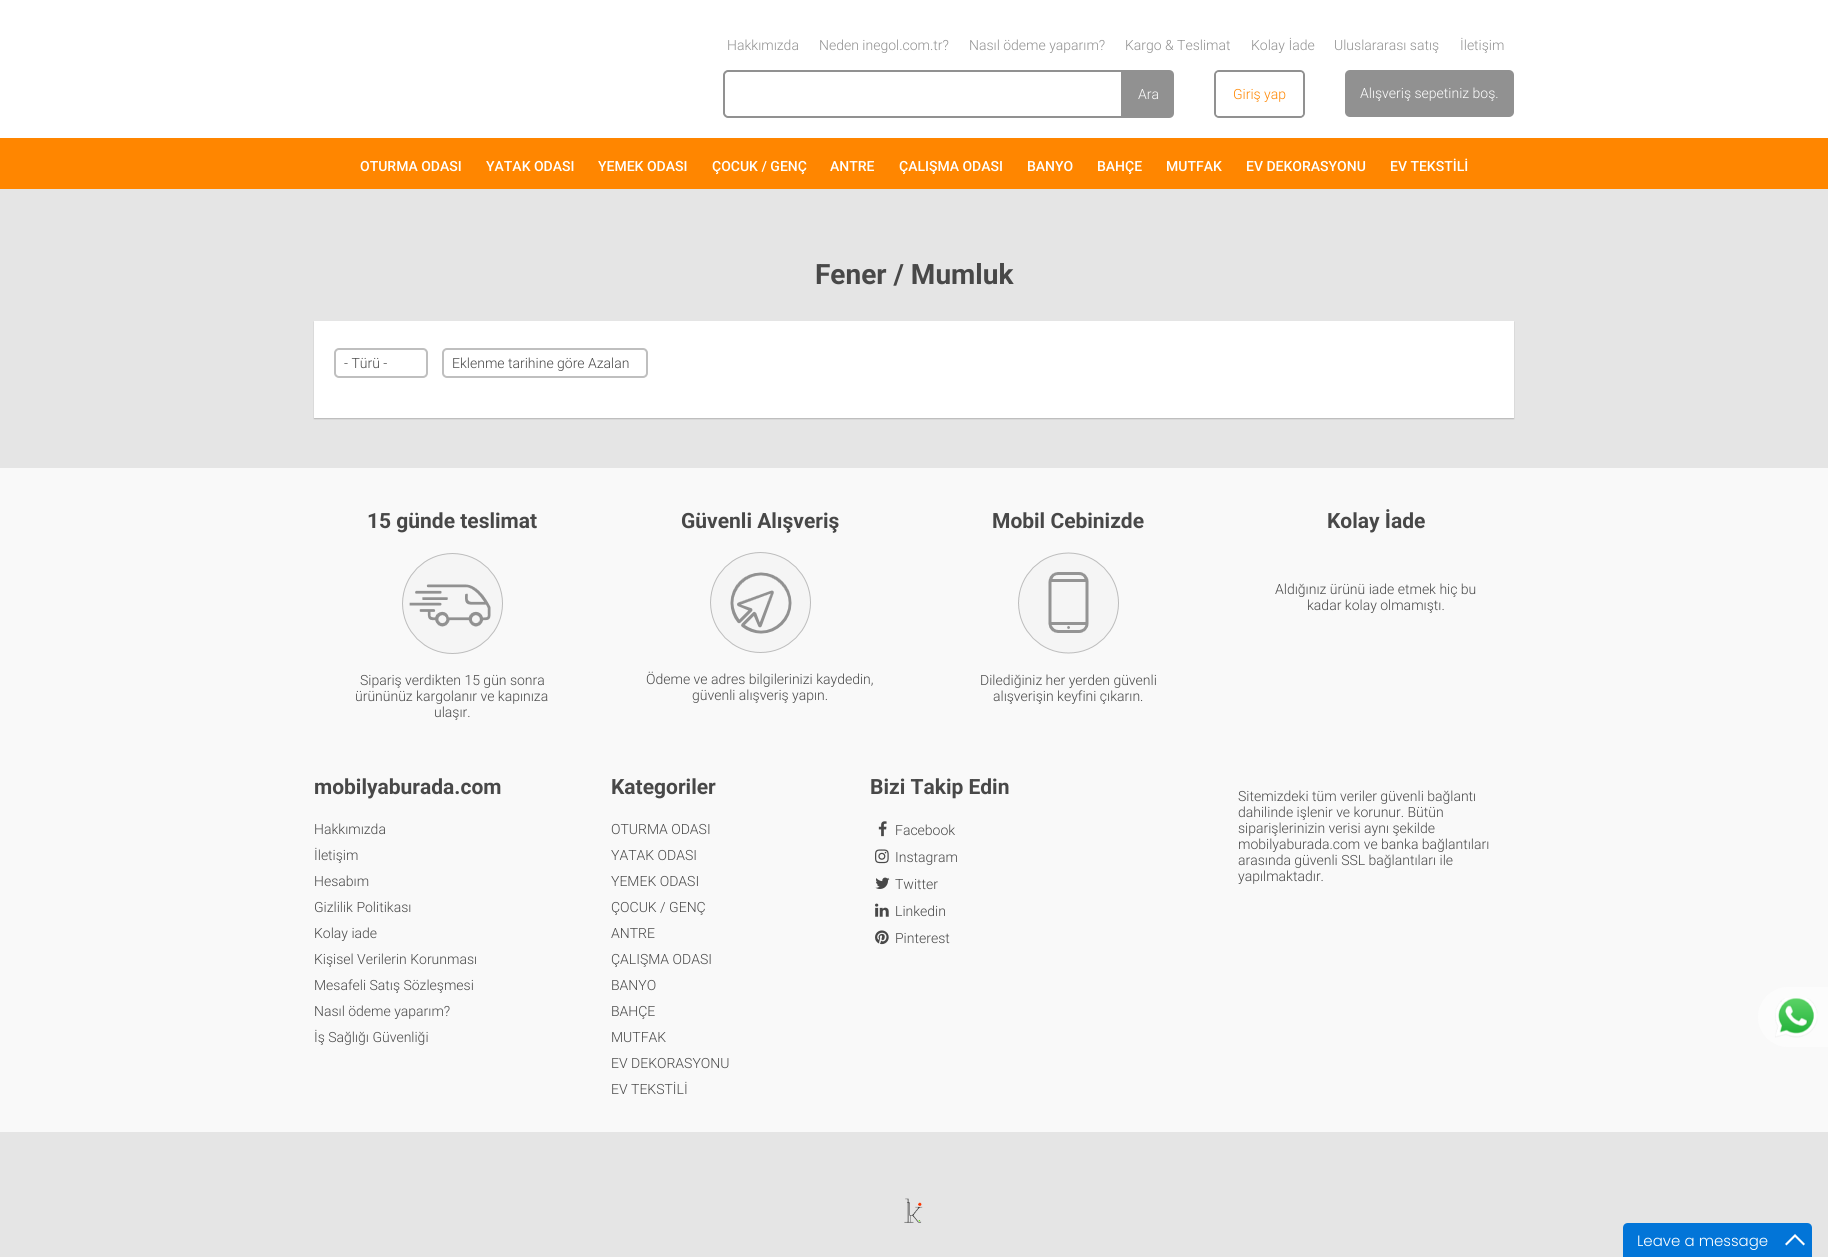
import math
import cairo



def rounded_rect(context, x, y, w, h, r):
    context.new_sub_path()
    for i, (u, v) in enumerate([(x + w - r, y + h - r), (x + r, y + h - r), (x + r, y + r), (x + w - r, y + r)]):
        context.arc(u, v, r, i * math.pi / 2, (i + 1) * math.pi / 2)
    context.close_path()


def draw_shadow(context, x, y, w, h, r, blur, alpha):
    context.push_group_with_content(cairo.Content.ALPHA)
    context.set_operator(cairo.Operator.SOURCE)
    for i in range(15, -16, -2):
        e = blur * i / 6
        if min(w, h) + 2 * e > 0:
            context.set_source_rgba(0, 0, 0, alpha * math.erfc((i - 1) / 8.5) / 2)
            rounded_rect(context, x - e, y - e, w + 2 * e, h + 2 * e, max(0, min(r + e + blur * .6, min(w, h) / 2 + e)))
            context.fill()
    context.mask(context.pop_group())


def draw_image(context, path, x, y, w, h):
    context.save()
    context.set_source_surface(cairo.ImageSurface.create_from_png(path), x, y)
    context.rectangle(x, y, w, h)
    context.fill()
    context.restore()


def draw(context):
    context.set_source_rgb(229 / 255, 229 / 255, 229 / 255)
    context.paint()
    context.set_source_rgb(1, 1, 1)
    context.rectangle(0, 0, 1828, 138)
    context.fill()
    context.new_path()
    context.move_to(728, 71)
    context.line_to(1122, 71)
    context.line_to(1122, 117)
    context.line_to(728, 117)
    context.curve_to(726, 117, 724, 115, 724, 113)
    context.line_to(724, 75)
    context.curve_to(724, 73, 726, 71, 728, 71)
    context.close_path()
    context.set_source_rgb(145 / 255, 145 / 255, 145 / 255)
    context.stroke()
    context.new_path()
    context.move_to(1123, 70)
    context.line_to(1169, 70)
    context.curve_to(1172, 70, 1174, 72, 1174, 75)
    context.line_to(1174, 113)
    context.curve_to(1174, 116, 1172, 118, 1169, 118)
    context.line_to(1123, 118)
    context.close_path()
    context.fill()
    rounded_rect(context, 1215, 71, 89, 46, 4)
    context.stroke()
    context.set_source_rgb(1, 1, 1)
    rounded_rect(context, 1216, 72, 87, 44, 3)
    context.fill()
    context.set_source_rgb(145 / 255, 145 / 255, 145 / 255)
    rounded_rect(context, 1345, 70, 169, 47, 5)
    context.fill()
    context.set_source_rgb(1, 134 / 255, 0)
    context.rectangle(0, 138, 1828, 51)
    context.fill()
    context.set_source_rgb(0, 0, 0)
    draw_shadow(context, 314, 322, 1200, 97, 0, 0.5, 0.2)
    context.set_source_rgb(1, 1, 1)
    context.rectangle(314, 321, 1200, 97)
    context.fill()
    rounded_rect(context, 335, 349, 92, 28, 4)
    context.set_source_rgb(191 / 255, 191 / 255, 191 / 255)
    context.stroke()
    rounded_rect(context, 443, 349, 204, 28, 4)
    context.stroke()
    context.set_source_rgb(249 / 255, 249 / 255, 249 / 255)
    context.rectangle(0, 468, 1828, 664)
    context.fill()
    draw_image(context, "images/1.png", 402, 553, 101, 101)
    draw_image(context, "images/2.png", 710, 552, 101, 101)
    draw_image(context, "images/3.png", 1018, 552, 101, 102)
    draw_image(context, "images/4.png", 878, 821, 9, 16)
    draw_image(context, "images/5.png", 875, 849, 14, 15)
    draw_image(context, "images/6.png", 875, 877, 15, 12)
    draw_image(context, "images/7.png", 875, 903, 14, 14)
    draw_image(context, "images/8.png", 875, 930, 14, 15)
    context.set_source_rgb(252 / 255, 252 / 255, 252 / 255)
    context.new_path()
    context.move_to(1788, 987)
    context.line_to(1828, 987)
    context.line_to(1828, 1047)
    context.line_to(1788, 1047)
    context.curve_to(1771.5, 1047, 1758, 1033.5, 1758, 1017)
    context.curve_to(1758, 1000.5, 1771.5, 987, 1788, 987)
    context.close_path()
    context.fill()
    draw_image(context, "images/9.png", 1775, 998, 43, 40)
    draw_image(context, "images/10.png", 904, 1198, 19, 25)
    context.set_source_rgb(2 / 255, 117 / 255, 216 / 255)
    context.new_path()
    context.move_to(1628, 1223)
    context.line_to(1807, 1223)
    context.curve_to(1810, 1223, 1812, 1225, 1812, 1228)
    context.line_to(1812, 1257)
    context.line_to(1623, 1257)
    context.line_to(1623, 1228)
    context.curve_to(1623, 1225, 1625, 1223, 1628, 1223)
    context.close_path()
    context.fill()
    context.set_source_rgb(1, 1, 1)
    context.new_path()
    context.move_to(1795, 1234)
    context.line_to(1805, 1244)
    context.line_to(1803.5, 1245.5)
    context.line_to(1795, 1237)
    context.line_to(1786.5, 1245.5)
    context.line_to(1785, 1244)
    context.close_path()
    context.fill()
    context.select_font_face("Roboto Light")
    context.set_font_size(14)
    context.set_source_rgb(145 / 255, 145 / 255, 145 / 255)
    context.move_to(727, 50)
    context.show_text("Hakkımızda")
    context.move_to(819, 50)
    context.show_text("Neden inegol.com.tr?")
    context.move_to(969, 50)
    context.show_text("Nasıl ödeme yaparım?")
    context.move_to(1125, 50)
    context.show_text("Kargo & Teslimat")
    context.move_to(1251, 50)
    context.show_text("Kolay İade")
    context.move_to(1334, 50)
    context.show_text("Uluslararası satış")
    context.move_to(1460, 50)
    context.show_text("İletişim")
    context.set_source_rgb(1, 1, 1)
    context.move_to(1138, 99)
    context.show_text("Ara")
    context.set_source_rgb(1, 134 / 255, 0)
    context.move_to(1233, 99)
    context.show_text("Giriş yap")
    context.set_source_rgb(1, 1, 1)
    context.move_to(1360, 98)
    context.show_text("Alışveriş sepetiniz boş.")
    context.select_font_face("Roboto Medium")
    context.move_to(360, 171)
    context.show_text("OTURMA ODASI")
    context.move_to(486, 171)
    context.show_text("YATAK ODASI")
    context.move_to(598, 171)
    context.show_text("YEMEK ODASI")
    context.move_to(712, 171)
    context.show_text("ÇOCUK / GENÇ")
    context.move_to(830, 171)
    context.show_text("ANTRE")
    context.move_to(899, 171)
    context.show_text("ÇALIŞMA ODASI")
    context.move_to(1027, 171)
    context.show_text("BANYO")
    context.move_to(1097, 171)
    context.show_text("BAHÇE")
    context.move_to(1166, 171)
    context.show_text("MUTFAK")
    context.move_to(1246, 171)
    context.show_text("EV DEKORASYONU")
    context.move_to(1390, 171)
    context.show_text("EV TEKSTİLİ")
    context.select_font_face("Roboto", cairo.FontSlant.NORMAL, cairo.FontWeight.BOLD)
    context.set_font_size(28)
    context.set_source_rgb(72 / 255, 72 / 255, 72 / 255)
    context.move_to(815, 284)
    context.show_text("Fener / Mumluk")
    context.select_font_face("Roboto Light")
    context.set_font_size(14)
    context.move_to(344, 368)
    context.show_text("- Türü -")
    context.move_to(452, 368)
    context.show_text("Eklenme tarihine göre Azalan")
    context.select_font_face("Roboto", cairo.FontSlant.NORMAL, cairo.FontWeight.BOLD)
    context.set_font_size(21)
    context.move_to(367, 528)
    context.show_text("15 günde teslimat")
    context.select_font_face("Roboto Light")
    context.set_font_size(14)
    context.move_to(360, 685)
    context.show_text("Sipariş verdikten 15 gün sonra")
    context.move_to(355, 701)
    context.show_text("ürününüz kargolanır ve kapınıza")
    context.move_to(434, 717)
    context.show_text("ulaşır.")
    context.select_font_face("Roboto", cairo.FontSlant.NORMAL, cairo.FontWeight.BOLD)
    context.set_font_size(21)
    context.move_to(681, 528)
    context.show_text("Güvenli Alışveriş")
    context.select_font_face("Roboto Light")
    context.set_font_size(14)
    context.move_to(646, 684)
    context.show_text("Ödeme ve adres bilgilerinizi kaydedin,")
    context.move_to(692, 700)
    context.show_text("güvenli alışveriş yapın.")
    context.select_font_face("Roboto", cairo.FontSlant.NORMAL, cairo.FontWeight.BOLD)
    context.set_font_size(21)
    context.move_to(992, 528)
    context.show_text("Mobil Cebinizde")
    context.select_font_face("Roboto Light")
    context.set_font_size(14)
    context.move_to(980, 685)
    context.show_text("Dilediğiniz her yerden güvenli")
    context.move_to(993, 701)
    context.show_text("alışverişin keyfini çıkarın.")
    context.select_font_face("Roboto", cairo.FontSlant.NORMAL, cairo.FontWeight.BOLD)
    context.set_font_size(21)
    context.move_to(1327, 528)
    context.show_text("Kolay İade")
    context.select_font_face("Roboto Light")
    context.set_font_size(14)
    context.move_to(1275, 594)
    context.show_text("Aldığınız ürünü iade etmek hiç bu")
    context.move_to(1307, 610)
    context.show_text("kadar kolay olmamıştı.")
    context.select_font_face("Roboto", cairo.FontSlant.NORMAL, cairo.FontWeight.BOLD)
    context.set_font_size(21)
    context.move_to(314, 794)
    context.show_text("mobilyaburada.com")
    context.select_font_face("Roboto Light")
    context.set_font_size(14)
    context.move_to(314, 834)
    context.show_text("Hakkımızda")
    context.move_to(314, 860)
    context.show_text("İletişim")
    context.move_to(314, 886)
    context.show_text("Hesabım")
    context.move_to(314, 912)
    context.show_text("Gizlilik Politikası")
    context.move_to(314, 938)
    context.show_text("Kolay iade")
    context.move_to(314, 964)
    context.show_text("Kişisel Verilerin Korunması")
    context.move_to(314, 990)
    context.show_text("Mesafeli Satış Sözleşmesi")
    context.move_to(314, 1016)
    context.show_text("Nasıl ödeme yaparım?")
    context.move_to(314, 1042)
    context.show_text("İş Sağlığı Güvenliği")
    context.select_font_face("Roboto", cairo.FontSlant.NORMAL, cairo.FontWeight.BOLD)
    context.set_font_size(21)
    context.move_to(611, 794)
    context.show_text("Kategoriler")
    context.select_font_face("Roboto Light")
    context.set_font_size(14)
    context.move_to(611, 834)
    context.show_text("OTURMA ODASI")
    context.move_to(611, 860)
    context.show_text("YATAK ODASI")
    context.move_to(611, 886)
    context.show_text("YEMEK ODASI")
    context.move_to(611, 912)
    context.show_text("ÇOCUK / GENÇ")
    context.move_to(611, 938)
    context.show_text("ANTRE")
    context.move_to(611, 964)
    context.show_text("ÇALIŞMA ODASI")
    context.move_to(611, 990)
    context.show_text("BANYO")
    context.move_to(611, 1016)
    context.show_text("BAHÇE")
    context.move_to(611, 1042)
    context.show_text("MUTFAK")
    context.move_to(611, 1068)
    context.show_text("EV DEKORASYONU")
    context.move_to(611, 1094)
    context.show_text("EV TEKSTİLİ")
    context.select_font_face("Roboto", cairo.FontSlant.NORMAL, cairo.FontWeight.BOLD)
    context.set_font_size(21)
    context.move_to(870, 794)
    context.show_text("Bizi Takip Edin")
    context.select_font_face("Roboto Light")
    context.set_font_size(14)
    context.move_to(895, 835)
    context.show_text("Facebook")
    context.move_to(895, 862)
    context.show_text("Instagram")
    context.move_to(895, 889)
    context.show_text("Twitter")
    context.move_to(895, 916)
    context.show_text("Linkedin")
    context.move_to(895, 943)
    context.show_text("Pinterest")
    context.move_to(1238, 801)
    context.show_text("Sitemizdeki tüm veriler güvenli bağlantı")
    context.move_to(1238, 817)
    context.show_text("dahilinde işlenir ve korunur. Bütün")
    context.move_to(1238, 833)
    context.show_text("siparişlerinizin verisi aynı şekilde")
    context.move_to(1238, 849)
    context.show_text("mobilyaburada.com ve banka bağlantıları")
    context.move_to(1238, 865)
    context.show_text("arasında güvenli SSL bağlantıları ile")
    context.move_to(1238, 881)
    context.show_text("yapılmaktadır.")
    context.select_font_face("Poppins Light")
    context.set_font_size(15)
    context.set_source_rgb(1, 1, 1)
    context.move_to(1637, 1246)
    context.show_text("Leave a message")


surface = cairo.ImageSurface(cairo.Format.RGB24, 1828, 1257)
context = cairo.Context(surface)
options = cairo.FontOptions()
options.set_hint_metrics(cairo.HintMetrics.OFF)
options.set_hint_style(cairo.HintStyle.NONE)
context.set_font_options(options)
context.set_miter_limit(4)
draw(context)
surface.write_to_png("out.png")
